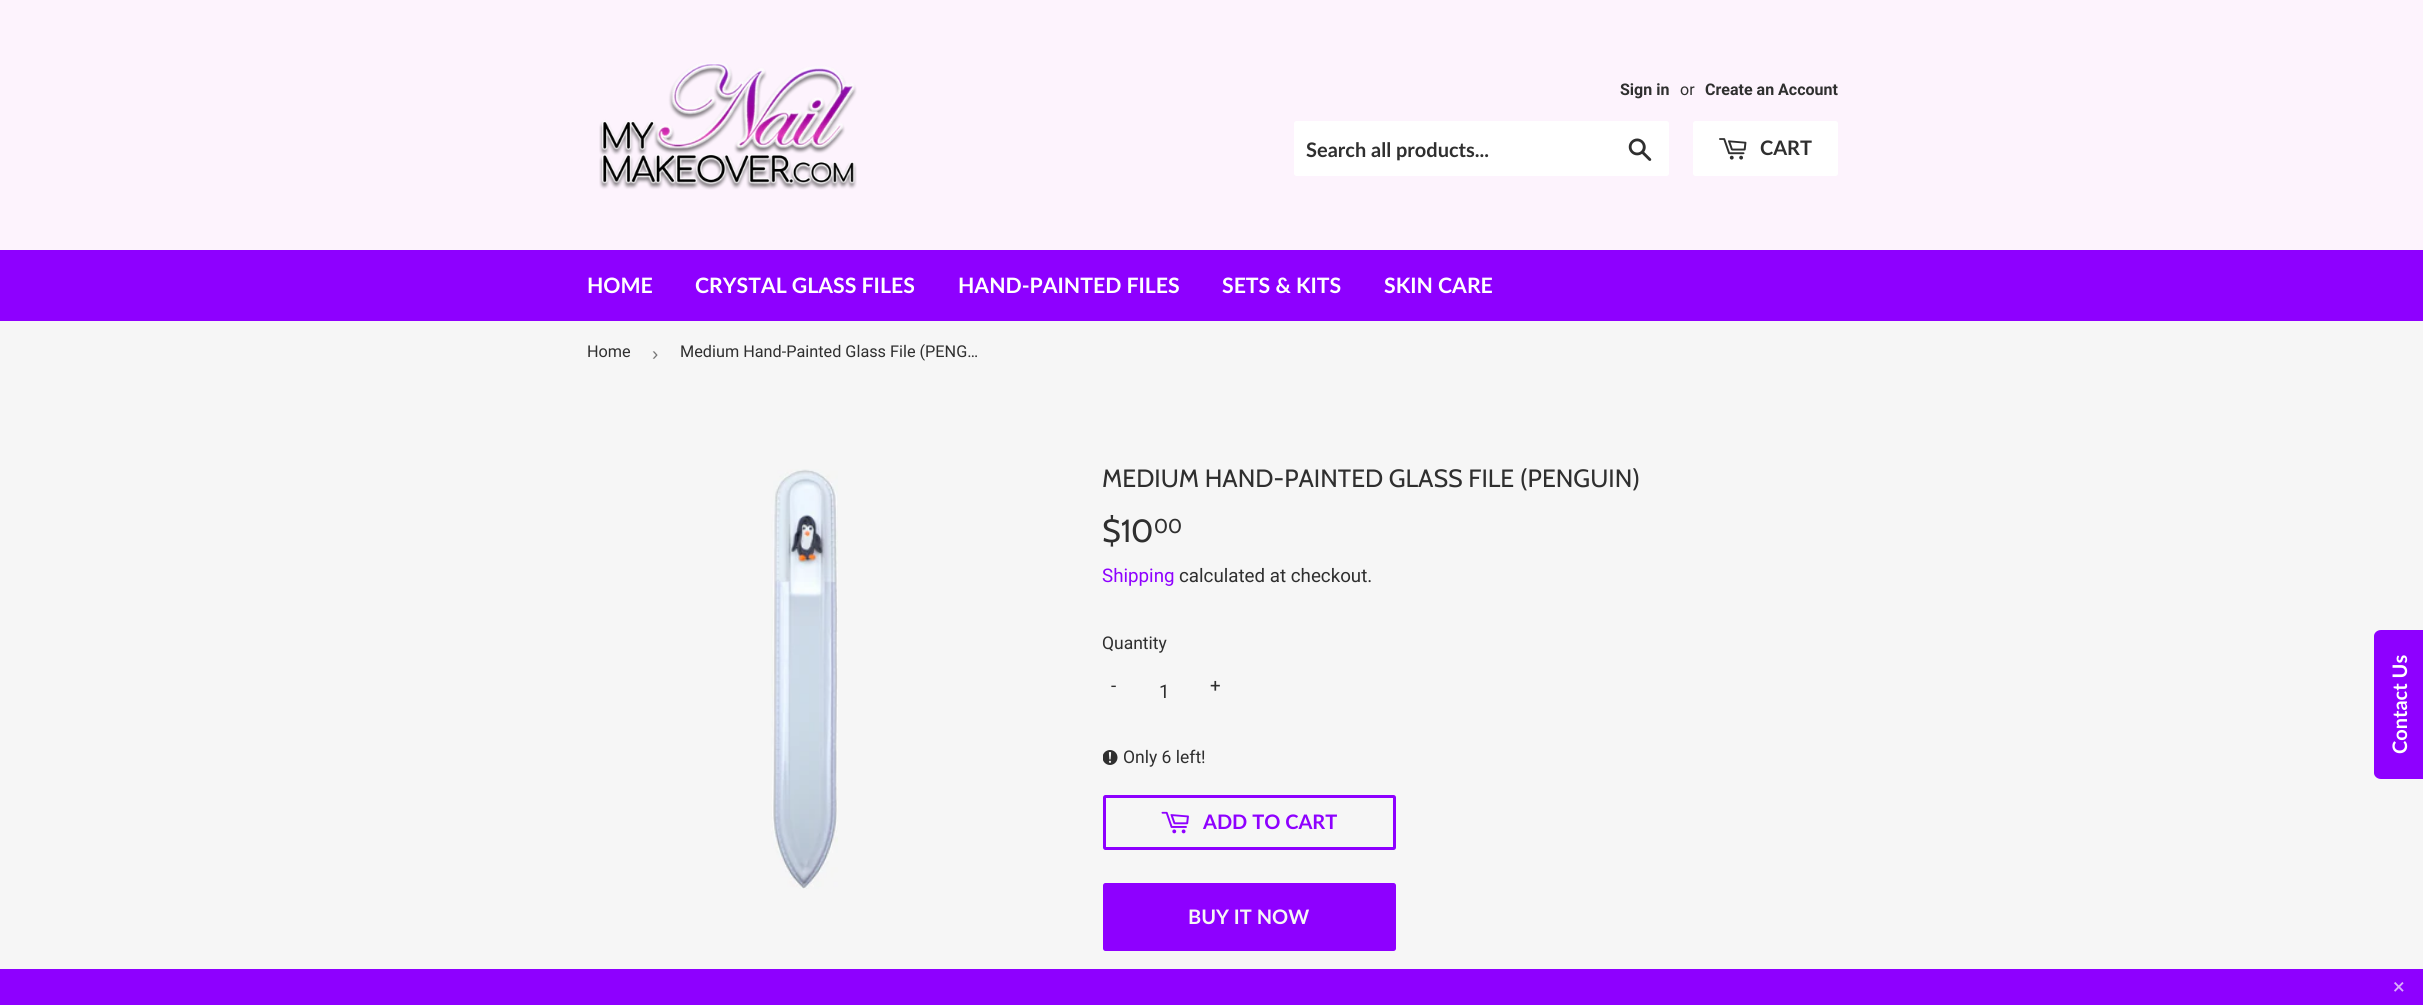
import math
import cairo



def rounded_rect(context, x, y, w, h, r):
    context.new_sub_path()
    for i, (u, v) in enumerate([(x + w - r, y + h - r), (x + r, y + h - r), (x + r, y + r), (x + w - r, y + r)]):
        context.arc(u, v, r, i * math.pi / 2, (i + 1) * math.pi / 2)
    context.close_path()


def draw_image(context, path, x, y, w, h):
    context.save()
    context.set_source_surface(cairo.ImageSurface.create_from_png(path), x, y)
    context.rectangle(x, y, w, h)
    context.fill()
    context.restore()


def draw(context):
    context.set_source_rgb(246 / 255, 246 / 255, 246 / 255)
    context.paint()
    context.set_source_rgb(253 / 255, 243 / 255, 253 / 255)
    context.rectangle(0, 0, 2423, 250)
    context.fill()
    draw_image(context, "images/1.png", 599, 63, 258, 127)
    context.set_source_rgb(1, 1, 1)
    rounded_rect(context, 1294, 121, 375, 55, 2.5)
    context.fill()
    draw_image(context, "images/2.png", 1628, 138, 24, 23)
    rounded_rect(context, 1693, 121, 145, 55, 2.5)
    context.fill()
    draw_image(context, "images/3.png", 1719, 138, 28, 22)
    context.set_source_rgb(142 / 255, 0, 1)
    context.rectangle(0, 250, 2423, 71)
    context.fill()
    draw_image(context, "images/4.png", 771, 469, 67, 420)
    draw_image(context, "images/5.png", 1103, 750, 15, 15)
    rounded_rect(context, 1104.5, 796.5, 290, 52, 1)
    context.set_line_width(3)
    context.stroke()
    draw_image(context, "images/6.png", 1161, 811, 28, 23)
    rounded_rect(context, 1103, 883, 293, 68, 2.5)
    context.fill()
    context.new_path()
    context.move_to(2374, 773)
    context.line_to(2374, 636)
    context.curve_to(2374, 633, 2377, 630, 2381, 630)
    context.line_to(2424, 630)
    context.line_to(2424, 779)
    context.line_to(2381, 779)
    context.curve_to(2377, 779, 2374, 776, 2374, 773)
    context.close_path()
    context.fill()
    context.rectangle(0, 969, 2423, 36)
    context.fill()
    context.select_font_face("Roboto", cairo.FontSlant.NORMAL, cairo.FontWeight.BOLD)
    context.set_font_size(16)
    context.set_source_rgb(47 / 255, 47 / 255, 47 / 255)
    context.move_to(1620, 95)
    context.show_text("Sign in")
    context.select_font_face("Roboto")
    context.move_to(1680, 95)
    context.show_text("or")
    context.select_font_face("Roboto", cairo.FontSlant.NORMAL, cairo.FontWeight.BOLD)
    context.move_to(1705, 95)
    context.show_text("Create an Account")
    context.select_font_face("Lato", cairo.FontSlant.NORMAL, cairo.FontWeight.BOLD)
    context.set_font_size(20)
    context.move_to(1306, 157)
    context.show_text("Search all products...")
    context.move_to(1760, 155)
    context.show_text("CART")
    context.set_font_size(21.25)
    context.set_source_rgb(1, 1, 1)
    context.move_to(587, 293)
    context.show_text("HOME")
    context.move_to(695, 293)
    context.show_text("CRYSTAL GLASS FILES")
    context.move_to(958, 293)
    context.show_text("HAND-PAINTED FILES")
    context.move_to(1222, 293)
    context.show_text("SETS & KITS")
    context.move_to(1384, 293)
    context.show_text("SKIN CARE")
    context.select_font_face("Roboto")
    context.set_font_size(16.25)
    context.set_source_rgb(47 / 255, 47 / 255, 47 / 255)
    context.move_to(587, 357)
    context.show_text("Home")
    context.select_font_face("Liberation Sans")
    context.set_font_size(18.75)
    context.set_source_rgb(118 / 255, 118 / 255, 118 / 255)
    context.move_to(652, 360)
    context.show_text("›")
    context.select_font_face("Roboto")
    context.set_font_size(16.25)
    context.set_source_rgb(47 / 255, 47 / 255, 47 / 255)
    context.move_to(680, 357)
    context.show_text("Medium Hand-Painted Glass File (PENG…")
    context.select_font_face("Cabin")
    context.set_font_size(25)
    context.move_to(1102, 487)
    context.show_text("MEDIUM HAND-PAINTED GLASS FILE (PENGUIN)")
    context.set_font_size(32)
    context.move_to(1102, 542)
    context.show_text("$10")
    context.set_font_size(20)
    context.move_to(1154, 533)
    context.show_text("00")
    context.select_font_face("Roboto")
    context.set_font_size(18.75)
    context.set_source_rgb(142 / 255, 0, 1)
    context.move_to(1102, 582)
    context.show_text("Shipping")
    context.set_source_rgb(47 / 255, 47 / 255, 47 / 255)
    context.move_to(1179, 582)
    context.show_text("calculated at checkout.")
    context.set_font_size(17.5)
    context.move_to(1102, 649)
    context.show_text("Quantity")
    context.set_font_size(18.75)
    context.move_to(1111, 692)
    context.show_text("-")
    context.move_to(1159, 698)
    context.show_text("1")
    context.move_to(1210, 692)
    context.show_text("+")
    context.set_font_size(17.5)
    context.move_to(1123, 763)
    context.show_text("Only 6 left!")
    context.select_font_face("Lato", cairo.FontSlant.NORMAL, cairo.FontWeight.BOLD)
    context.set_font_size(20)
    context.set_source_rgb(142 / 255, 0, 1)
    context.move_to(1203, 829)
    context.show_text("ADD TO CART")
    context.set_source_rgb(246 / 255, 246 / 255, 246 / 255)
    context.move_to(1188, 924)
    context.show_text("BUY IT NOW")
    context.set_source_rgb(1, 1, 1)
    context.save()
    context.translate(2407, 754)
    context.rotate(-90 * math.pi / 180)
    context.move_to(0, 0)
    context.show_text("Contact Us")
    context.restore()
    context.select_font_face("Roboto")
    context.set_font_size(22)
    context.set_source_rgb(218 / 255, 174 / 255, 250 / 255)
    context.move_to(2393, 994)
    context.show_text("×")


surface = cairo.ImageSurface(cairo.Format.RGB24, 2423, 1005)
context = cairo.Context(surface)
options = cairo.FontOptions()
options.set_hint_metrics(cairo.HintMetrics.OFF)
options.set_hint_style(cairo.HintStyle.NONE)
context.set_font_options(options)
context.set_miter_limit(4)
draw(context)
surface.write_to_png("out.png")
